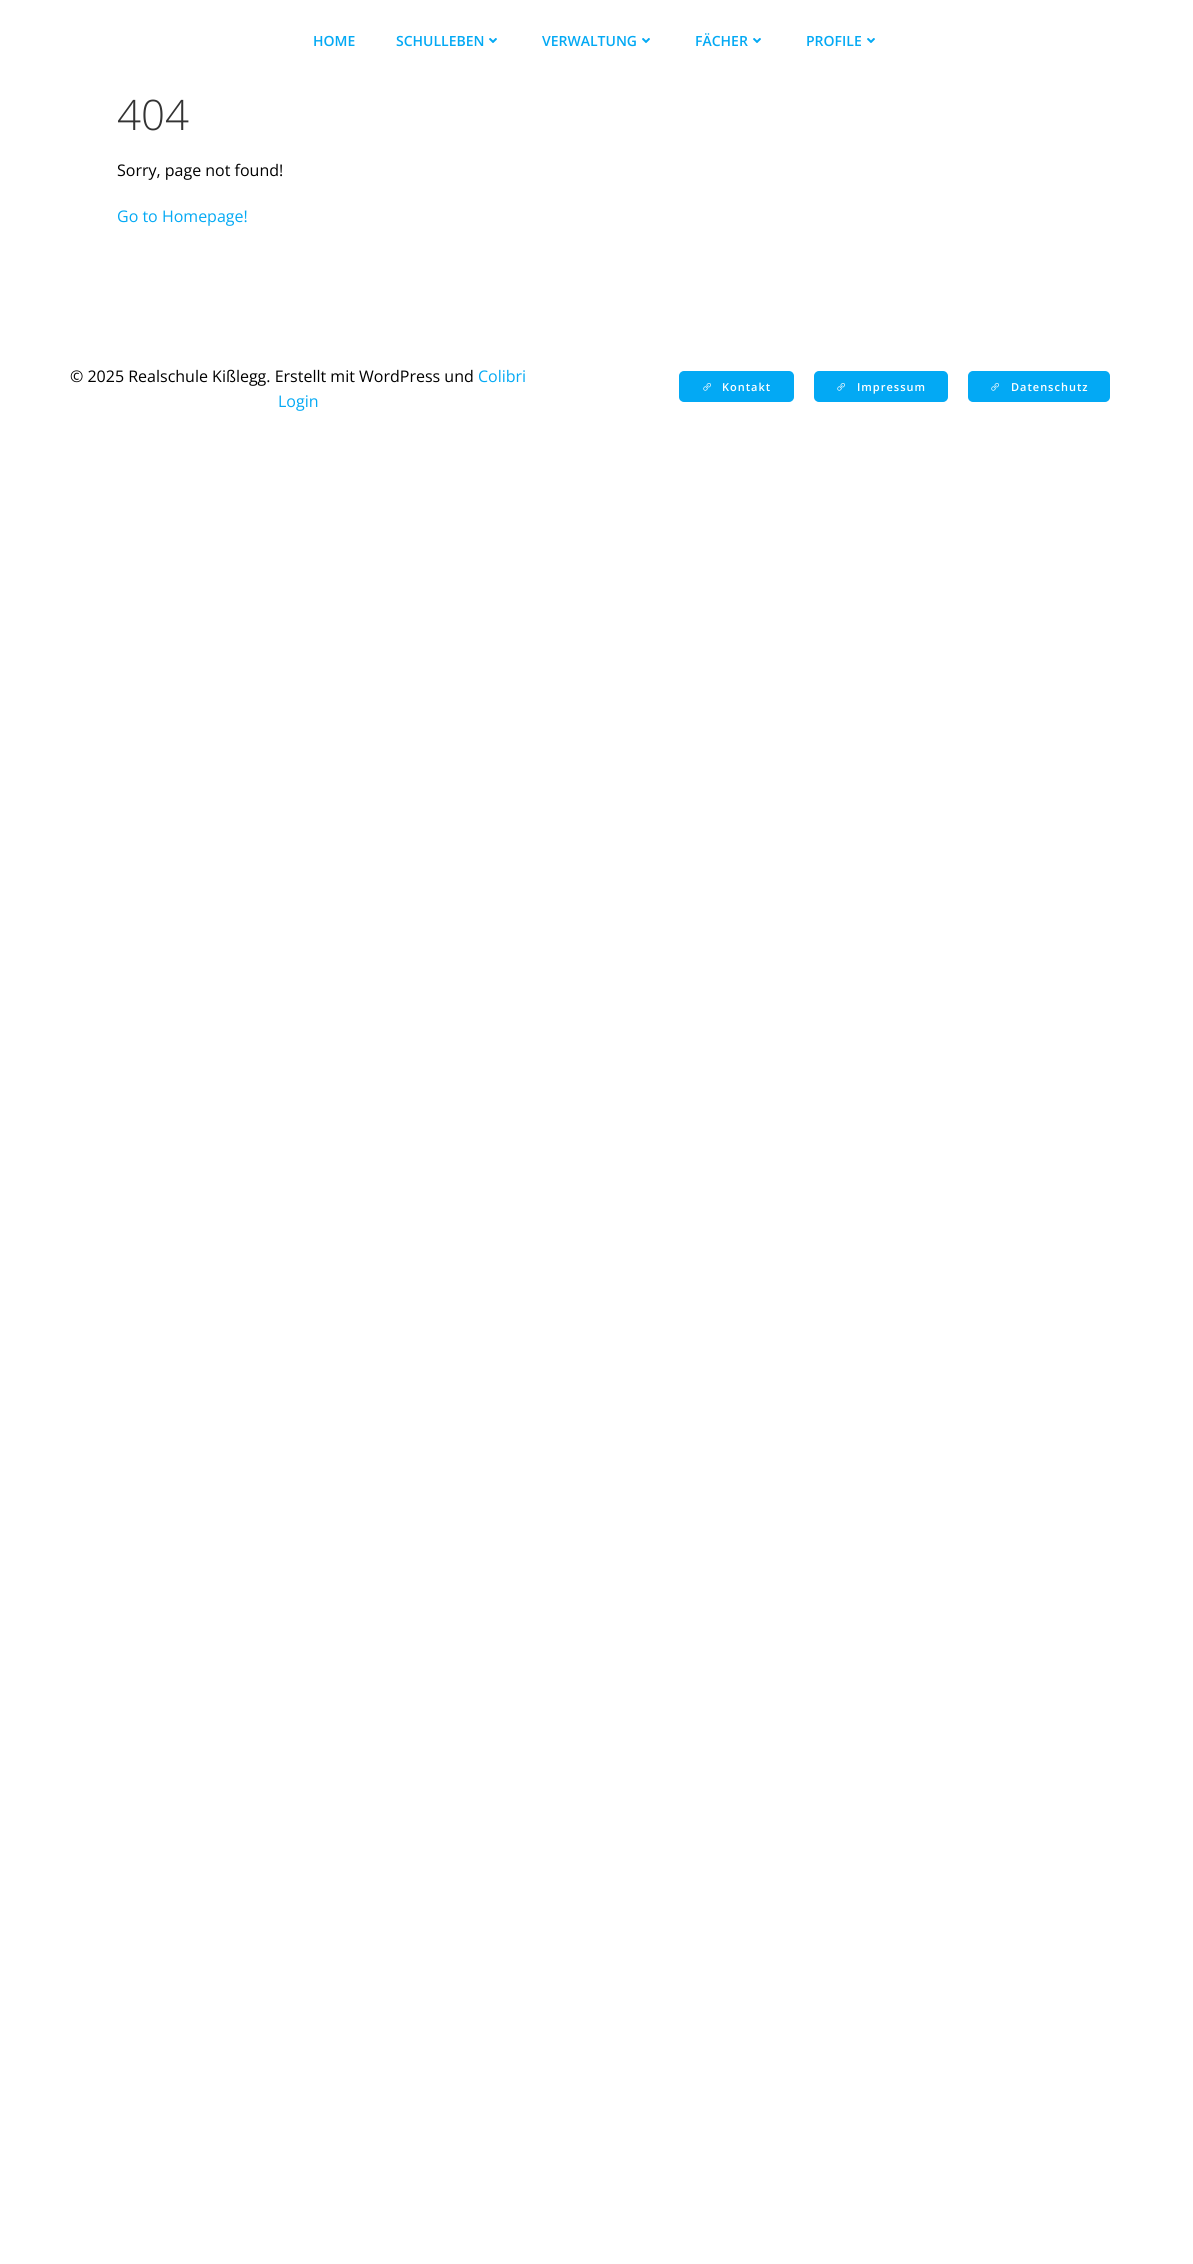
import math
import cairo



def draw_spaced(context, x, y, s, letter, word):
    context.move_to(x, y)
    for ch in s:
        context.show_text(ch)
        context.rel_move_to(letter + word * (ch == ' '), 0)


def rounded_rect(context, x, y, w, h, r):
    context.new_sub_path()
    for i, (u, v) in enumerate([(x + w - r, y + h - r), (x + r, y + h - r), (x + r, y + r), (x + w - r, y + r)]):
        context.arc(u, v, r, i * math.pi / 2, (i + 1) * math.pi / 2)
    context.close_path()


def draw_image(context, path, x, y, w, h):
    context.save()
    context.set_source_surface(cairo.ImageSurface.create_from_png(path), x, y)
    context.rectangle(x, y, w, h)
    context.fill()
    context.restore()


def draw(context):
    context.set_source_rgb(1, 1, 1)
    context.paint()
    draw_image(context, "images/1.png", 489, 38, 8, 5)
    draw_image(context, "images/1.png", 642, 38, 8, 5)
    draw_image(context, "images/1.png", 753, 38, 8, 5)
    draw_image(context, "images/1.png", 867, 38, 8, 5)
    context.set_source_rgb(3 / 255, 169 / 255, 244 / 255)
    rounded_rect(context, 680, 372, 113, 29, 4)
    context.fill_preserve()
    context.stroke()
    draw_image(context, "images/2.png", 703, 383, 8, 8)
    rounded_rect(context, 815, 372, 132, 29, 4)
    context.fill_preserve()
    context.stroke()
    draw_image(context, "images/2.png", 837, 383, 8, 8)
    rounded_rect(context, 969, 372, 140, 29, 4)
    context.fill_preserve()
    context.stroke()
    draw_image(context, "images/2.png", 991, 383, 8, 8)
    context.select_font_face("Open Sans SemiBold")
    context.set_font_size(14)
    context.move_to(313, 46)
    context.show_text("HOME")
    context.move_to(396, 46)
    context.show_text("SCHULLEBEN")
    context.move_to(542, 46)
    context.show_text("VERWALTUNG")
    context.move_to(695, 46)
    context.show_text("FÄCHER")
    context.move_to(806, 46)
    context.show_text("PROFILE")
    context.select_font_face("Open Sans Light")
    context.set_font_size(42)
    context.set_source_rgb(51 / 255, 51 / 255, 51 / 255)
    context.move_to(117, 130)
    context.show_text("404")
    context.select_font_face("Open Sans")
    context.set_font_size(16)
    context.set_source_rgb(0, 0, 0)
    context.move_to(117, 176)
    context.show_text("Sorry, page not found!")
    context.set_source_rgb(3 / 255, 169 / 255, 244 / 255)
    context.move_to(117, 222)
    context.show_text("Go to Homepage!")
    context.set_source_rgb(0, 0, 0)
    context.move_to(70, 382)
    context.show_text("© 2025 Realschule Kißlegg. Erstellt mit WordPress und")
    context.set_source_rgb(3 / 255, 169 / 255, 244 / 255)
    context.move_to(478, 382)
    context.show_text("Colibri")
    context.move_to(278, 407)
    context.show_text("Login")
    context.select_font_face("Open Sans SemiBold")
    context.set_font_size(11)
    context.set_source_rgb(1, 1, 1)
    draw_spaced(context, 722, 391, "Kontakt", 1, 0)
    draw_spaced(context, 857, 391, "Impressum", 1, 0)
    draw_spaced(context, 1011, 391, "Datenschutz", 1, 0)


surface = cairo.ImageSurface(cairo.Format.RGB24, 1193, 2264)
context = cairo.Context(surface)
options = cairo.FontOptions()
options.set_hint_metrics(cairo.HintMetrics.OFF)
options.set_hint_style(cairo.HintStyle.NONE)
context.set_font_options(options)
context.set_miter_limit(4)
draw(context)
surface.write_to_png("out.png")
